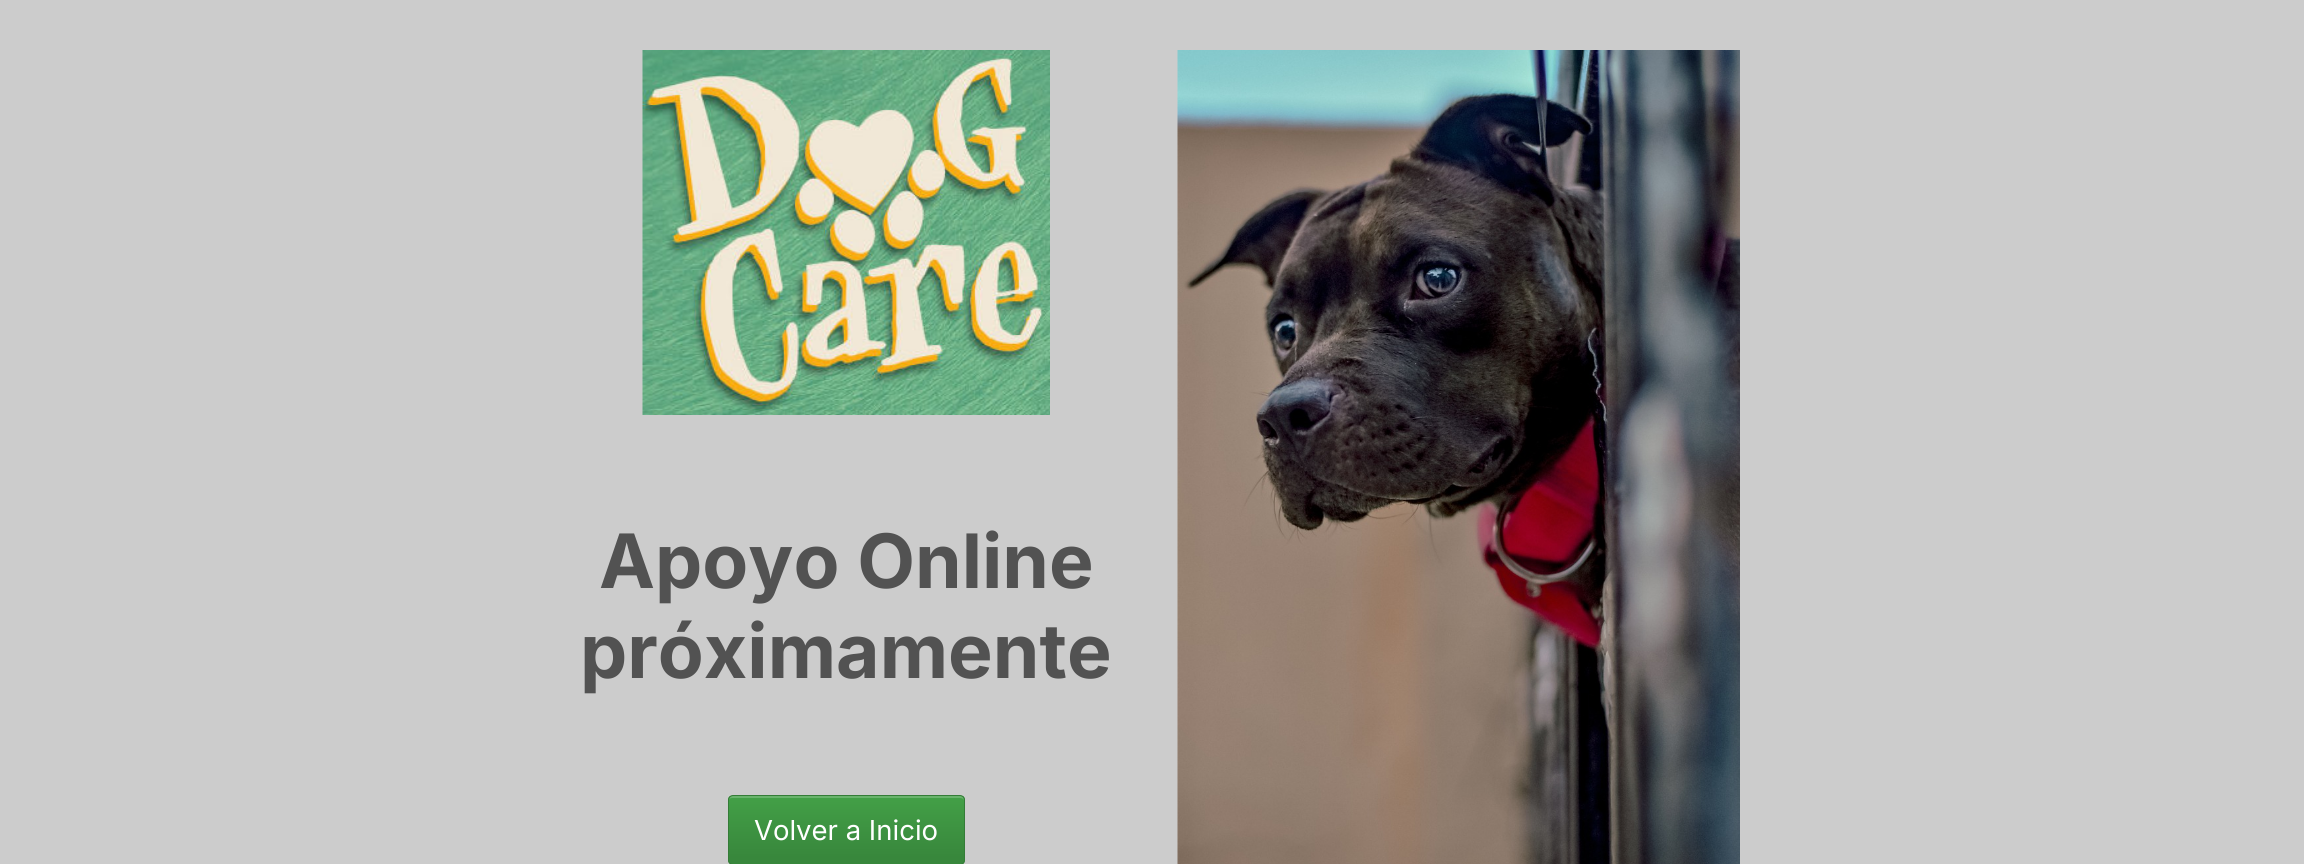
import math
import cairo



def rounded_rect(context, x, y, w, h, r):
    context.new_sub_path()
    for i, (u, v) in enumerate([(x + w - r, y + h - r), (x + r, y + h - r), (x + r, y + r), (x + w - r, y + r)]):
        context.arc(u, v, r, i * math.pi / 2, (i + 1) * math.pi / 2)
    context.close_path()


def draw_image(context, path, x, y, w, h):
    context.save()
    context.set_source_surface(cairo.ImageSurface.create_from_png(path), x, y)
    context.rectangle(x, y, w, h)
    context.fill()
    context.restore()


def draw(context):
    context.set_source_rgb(204 / 255, 204 / 255, 204 / 255)
    context.paint()
    draw_image(context, "images/1.png", 642, 50, 408, 365)
    context.save()
    rounded_rect(context, 728, 795, 237, 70, 5)
    context.clip()
    gradient = cairo.LinearGradient(846, 796, 846, 864)
    gradient.add_color_stop_rgba(0, 67 / 255, 160 / 255, 71 / 255, 1)
    gradient.add_color_stop_rgba(0.9, 56 / 255, 135 / 255, 60 / 255, 1)
    context.set_source(gradient)
    context.rectangle(728, 796, 237, 68)
    context.fill()
    context.restore()
    context.set_source_rgb(105 / 255, 179 / 255, 108 / 255)
    context.new_path()
    context.move_to(732, 798)
    context.line_to(960, 798)
    context.curve_to(962, 798, 964, 799, 964, 801)
    context.curve_to(964, 798, 963, 796, 960, 796)
    context.line_to(733, 796)
    context.curve_to(730, 796, 729, 798, 729, 801)
    context.curve_to(729, 799, 730, 798, 732, 798)
    context.close_path()
    context.fill()
    rounded_rect(context, 728.5, 795.5, 236, 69, 4.5)
    context.set_source_rgb(52 / 255, 124 / 255, 55 / 255)
    context.set_line_width(1)
    context.stroke()
    draw_image(context, "images/2.png", 1177, 50, 563, 814)
    context.select_font_face("Inter", cairo.FontSlant.NORMAL, cairo.FontWeight.BOLD)
    context.set_font_size(75)
    context.set_source_rgb(82 / 255, 82 / 255, 82 / 255)
    context.move_to(599, 588)
    context.show_text("Apoyo Online")
    context.move_to(580, 678)
    context.show_text("próximamente")
    context.select_font_face("Inter")
    context.set_font_size(27.5)
    context.set_source_rgb(1, 1, 1)
    context.move_to(754, 840)
    context.show_text("Volver a Inicio")


surface = cairo.ImageSurface(cairo.Format.RGB24, 2304, 864)
context = cairo.Context(surface)
options = cairo.FontOptions()
options.set_hint_metrics(cairo.HintMetrics.OFF)
options.set_hint_style(cairo.HintStyle.NONE)
context.set_font_options(options)
context.set_miter_limit(4)
draw(context)
surface.write_to_png("out.png")
